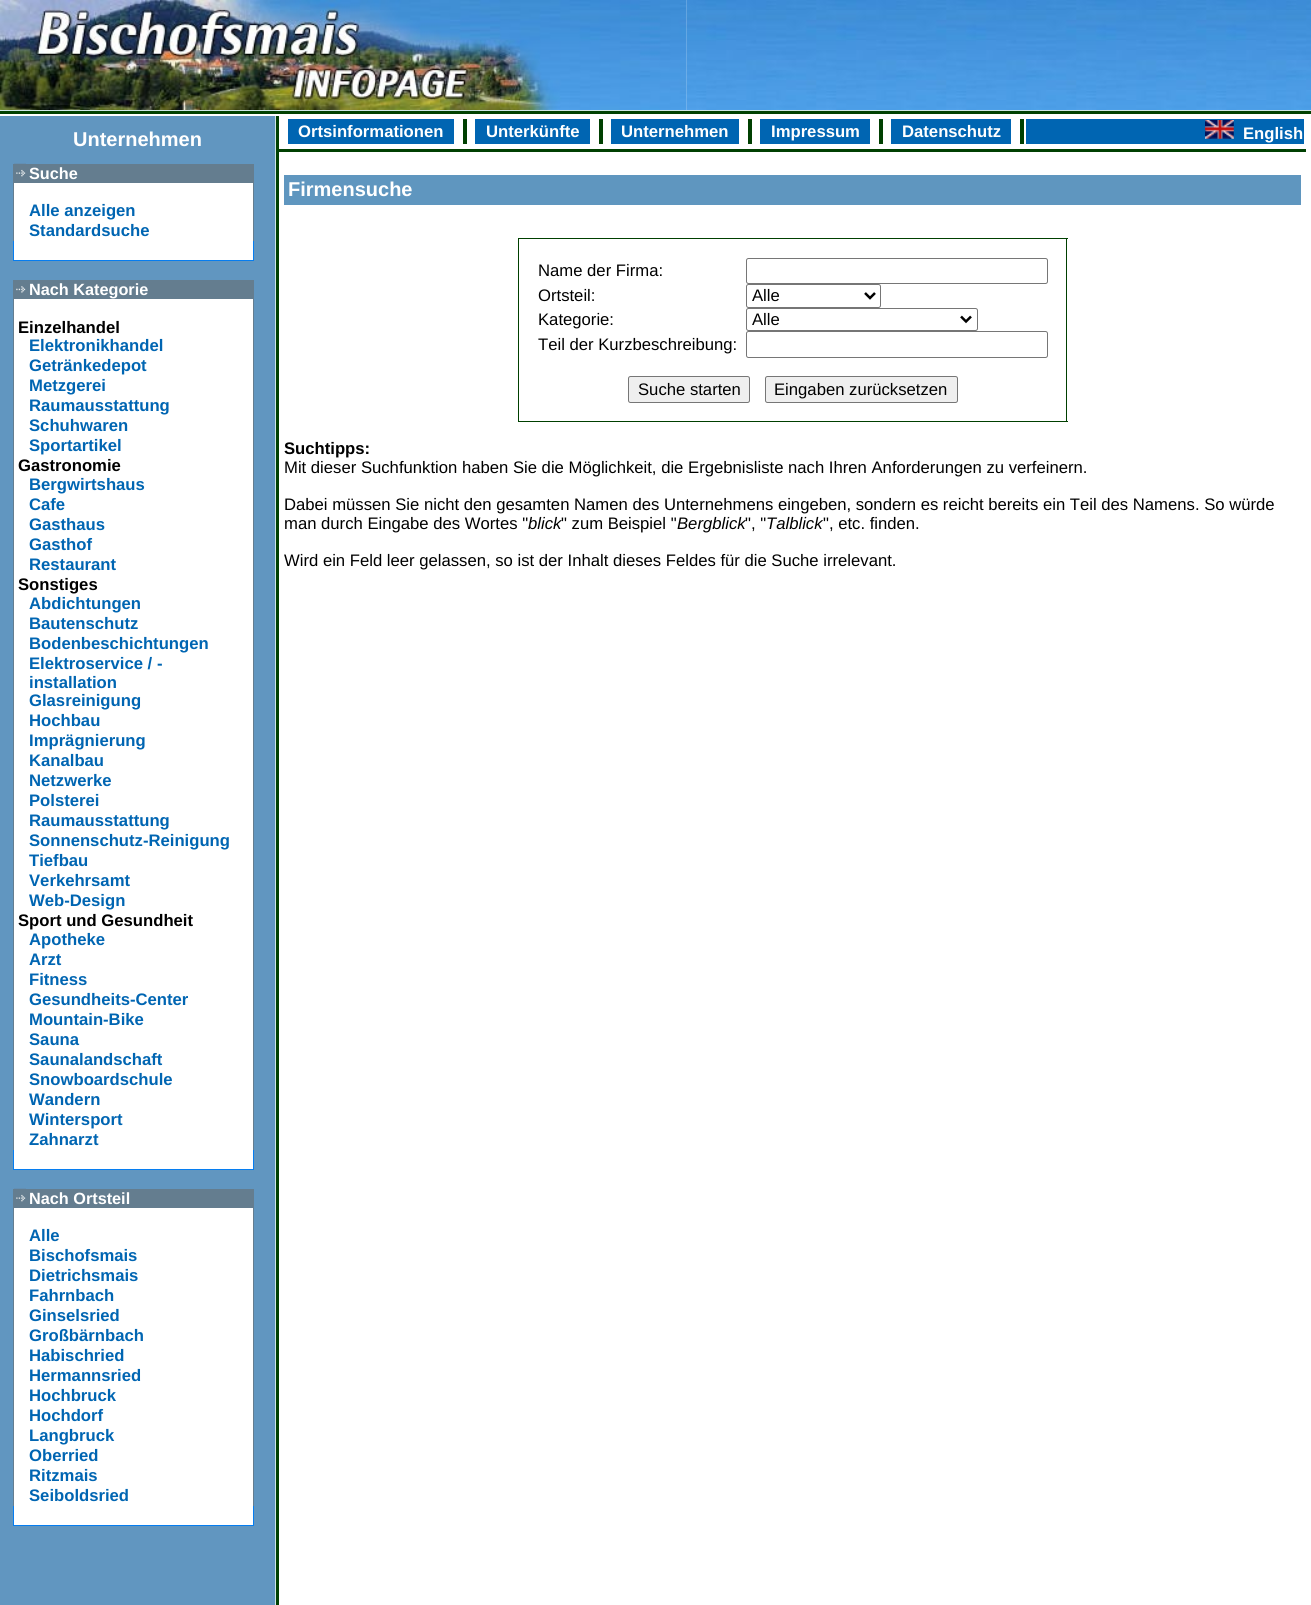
import math
import cairo



def rounded_rect(context, x, y, w, h, r):
    context.new_sub_path()
    for i, (u, v) in enumerate([(x + w - r, y + h - r), (x + r, y + h - r), (x + r, y + r), (x + w - r, y + r)]):
        context.arc(u, v, r, i * math.pi / 2, (i + 1) * math.pi / 2)
    context.close_path()


def draw_image(context, path, x, y, w, h):
    context.save()
    context.set_source_surface(cairo.ImageSurface.create_from_png(path), x, y)
    context.rectangle(x, y, w, h)
    context.fill()
    context.restore()


def draw(context):
    context.set_source_rgb(1, 1, 1)
    context.paint()
    draw_image(context, "images/1.png", 686, 0, 1, 110)
    draw_image(context, "images/2.png", 0, 0, 686, 110)
    draw_image(context, "images/3.png", 686, 0, 625, 110)
    context.set_source_rgb(206 / 255, 230 / 255, 230 / 255)
    context.rectangle(0, 110, 1311, 1)
    context.fill()
    context.set_source_rgb(0, 65 / 255, 1 / 255)
    context.rectangle(0, 111, 1311, 3)
    context.fill()
    context.set_source_rgb(97 / 255, 150 / 255, 192 / 255)
    context.rectangle(0, 116, 275, 1489)
    context.fill()
    context.set_source_rgb(206 / 255, 230 / 255, 230 / 255)
    context.rectangle(275, 116, 1, 1489)
    context.fill()
    context.set_source_rgb(0, 64 / 255, 1 / 255)
    context.rectangle(276, 116, 3, 1489)
    context.fill()
    context.set_source_rgb(1, 1, 1)
    context.rectangle(14, 183, 239, 77)
    context.fill()
    context.set_source_rgb(100 / 255, 125 / 255, 143 / 255)
    context.rectangle(13, 164, 241, 19)
    context.fill()
    draw_image(context, "images/4.png", 14, 163, 12, 14)
    context.rectangle(13, 183, 1, 58)
    context.fill()
    context.rectangle(253, 183, 1, 58)
    context.fill()
    context.set_source_rgb(6 / 255, 125 / 255, 240 / 255)
    context.rectangle(13, 241, 1, 19)
    context.fill()
    context.rectangle(253, 241, 1, 19)
    context.fill()
    context.rectangle(13, 260, 241, 1)
    context.fill()
    context.set_source_rgb(1, 1, 1)
    context.rectangle(14, 299, 239, 870)
    context.fill()
    context.set_source_rgb(100 / 255, 125 / 255, 143 / 255)
    context.rectangle(13, 280, 241, 19)
    context.fill()
    draw_image(context, "images/5.png", 16, 286, 10, 7)
    context.rectangle(13, 299, 1, 851)
    context.fill()
    context.rectangle(253, 299, 1, 851)
    context.fill()
    context.set_source_rgb(6 / 255, 125 / 255, 240 / 255)
    context.rectangle(13, 1150, 1, 19)
    context.fill()
    context.rectangle(253, 1150, 1, 19)
    context.fill()
    context.rectangle(13, 1169, 241, 1)
    context.fill()
    context.set_source_rgb(1, 1, 1)
    context.rectangle(14, 1208, 239, 317)
    context.fill()
    context.set_source_rgb(100 / 255, 125 / 255, 143 / 255)
    context.rectangle(13, 1189, 241, 19)
    context.fill()
    draw_image(context, "images/4.png", 14, 1188, 12, 14)
    context.rectangle(13, 1208, 1, 298)
    context.fill()
    context.rectangle(253, 1208, 1, 298)
    context.fill()
    context.set_source_rgb(6 / 255, 125 / 255, 240 / 255)
    context.rectangle(13, 1506, 1, 19)
    context.fill()
    context.rectangle(253, 1506, 1, 19)
    context.fill()
    context.rectangle(13, 1525, 241, 1)
    context.fill()
    context.set_source_rgb(0, 101 / 255, 178 / 255)
    context.rectangle(288, 119, 166, 25)
    context.fill()
    context.set_source_rgb(0, 64 / 255, 1 / 255)
    context.rectangle(463, 119, 4, 25)
    context.fill()
    context.set_source_rgb(0, 101 / 255, 178 / 255)
    context.rectangle(475, 119, 115, 25)
    context.fill()
    context.set_source_rgb(0, 64 / 255, 1 / 255)
    context.rectangle(599, 119, 4, 25)
    context.fill()
    context.set_source_rgb(0, 101 / 255, 178 / 255)
    context.rectangle(611, 119, 128, 25)
    context.fill()
    context.set_source_rgb(0, 64 / 255, 1 / 255)
    context.rectangle(748, 119, 4, 25)
    context.fill()
    context.set_source_rgb(0, 101 / 255, 178 / 255)
    context.rectangle(760, 119, 110, 25)
    context.fill()
    context.set_source_rgb(0, 64 / 255, 1 / 255)
    context.rectangle(879, 119, 4, 25)
    context.fill()
    context.set_source_rgb(0, 101 / 255, 178 / 255)
    context.rectangle(891, 119, 120, 25)
    context.fill()
    context.set_source_rgb(0, 64 / 255, 1 / 255)
    context.rectangle(1020, 119, 4, 25)
    context.fill()
    context.set_source_rgb(0, 101 / 255, 178 / 255)
    context.rectangle(1026, 119, 278, 25)
    context.fill()
    draw_image(context, "images/6.png", 1205, 120, 29, 19)
    context.set_source_rgb(0, 64 / 255, 1 / 255)
    context.rectangle(279, 149, 1027, 3)
    context.fill()
    context.set_source_rgb(95 / 255, 150 / 255, 191 / 255)
    context.rectangle(284, 175, 1017, 30)
    context.fill()
    context.set_source_rgb(0, 64 / 255, 0)
    context.rectangle(518, 238, 550, 1)
    context.fill()
    context.rectangle(518, 239, 1, 182)
    context.fill()
    context.rectangle(1066, 239, 1, 182)
    context.fill()
    rounded_rect(context, 746.5, 258.5, 301, 25, 2)
    context.set_source_rgb(118 / 255, 118 / 255, 118 / 255)
    context.set_line_width(1)
    context.stroke()
    rounded_rect(context, 746.5, 284.5, 134, 23, 2)
    context.stroke()
    context.new_path()
    context.move_to(865, 293)
    context.line_to(870, 298)
    context.line_to(875, 293)
    context.set_source_rgb(0, 0, 0)
    context.set_line_width(2.5)
    context.stroke()
    rounded_rect(context, 746.5, 308.5, 231, 22, 2)
    context.set_source_rgb(118 / 255, 118 / 255, 118 / 255)
    context.set_line_width(1)
    context.stroke()
    context.new_path()
    context.move_to(961, 316.5)
    context.line_to(966, 321.5)
    context.line_to(971, 316.5)
    context.set_source_rgb(0, 0, 0)
    context.set_line_width(2.5)
    context.stroke()
    rounded_rect(context, 746.5, 331.5, 301, 26, 2)
    context.set_source_rgb(118 / 255, 118 / 255, 118 / 255)
    context.set_line_width(1)
    context.stroke()
    context.set_source_rgb(239 / 255, 239 / 255, 239 / 255)
    rounded_rect(context, 628.5, 376.5, 121, 26, 2)
    context.fill_preserve()
    context.set_source_rgb(118 / 255, 118 / 255, 118 / 255)
    context.stroke()
    context.set_source_rgb(239 / 255, 239 / 255, 239 / 255)
    rounded_rect(context, 765.5, 376.5, 192, 26, 2)
    context.fill_preserve()
    context.set_source_rgb(118 / 255, 118 / 255, 118 / 255)
    context.stroke()
    context.set_source_rgb(0, 64 / 255, 0)
    context.rectangle(518, 421, 550, 1)
    context.fill()
    context.select_font_face("Liberation Sans", cairo.FontSlant.NORMAL, cairo.FontWeight.BOLD)
    context.set_font_size(20)
    context.set_source_rgb(1, 1, 1)
    context.move_to(73, 146)
    context.show_text("Unternehmen")
    context.set_font_size(16.25)
    context.move_to(29, 179)
    context.show_text("Suche")
    context.set_font_size(16.67)
    context.set_source_rgb(0, 101 / 255, 178 / 255)
    context.move_to(29, 216)
    context.show_text("Alle anzeigen")
    context.move_to(29, 236)
    context.show_text("Standardsuche")
    context.set_font_size(16.25)
    context.set_source_rgb(1, 1, 1)
    context.move_to(29, 295)
    context.show_text("Nach Kategorie")
    context.set_font_size(16.67)
    context.set_source_rgb(0, 0, 0)
    context.move_to(18, 333)
    context.show_text("Einzelhandel")
    context.set_source_rgb(0, 101 / 255, 178 / 255)
    context.move_to(29, 351)
    context.show_text("Elektronikhandel")
    context.move_to(29, 371)
    context.show_text("Getränkedepot")
    context.move_to(29, 391)
    context.show_text("Metzgerei")
    context.move_to(29, 411)
    context.show_text("Raumausstattung")
    context.move_to(29, 431)
    context.show_text("Schuhwaren")
    context.move_to(29, 451)
    context.show_text("Sportartikel")
    context.set_source_rgb(0, 0, 0)
    context.move_to(18, 471)
    context.show_text("Gastronomie")
    context.set_source_rgb(0, 101 / 255, 178 / 255)
    context.move_to(29, 490)
    context.show_text("Bergwirtshaus")
    context.move_to(29, 510)
    context.show_text("Cafe")
    context.move_to(29, 530)
    context.show_text("Gasthaus")
    context.move_to(29, 550)
    context.show_text("Gasthof")
    context.move_to(29, 570)
    context.show_text("Restaurant")
    context.set_source_rgb(0, 0, 0)
    context.move_to(18, 590)
    context.show_text("Sonstiges")
    context.set_source_rgb(0, 101 / 255, 178 / 255)
    context.move_to(29, 609)
    context.show_text("Abdichtungen")
    context.move_to(29, 629)
    context.show_text("Bautenschutz")
    context.move_to(29, 649)
    context.show_text("Bodenbeschichtungen")
    context.move_to(29, 669)
    context.show_text("Elektroservice / -")
    context.move_to(29, 688)
    context.show_text("installation")
    context.move_to(29, 706)
    context.show_text("Glasreinigung")
    context.move_to(29, 726)
    context.show_text("Hochbau")
    context.move_to(29, 746)
    context.show_text("Imprägnierung")
    context.move_to(29, 766)
    context.show_text("Kanalbau")
    context.move_to(29, 786)
    context.show_text("Netzwerke")
    context.move_to(29, 806)
    context.show_text("Polsterei")
    context.move_to(29, 826)
    context.show_text("Raumausstattung")
    context.move_to(29, 846)
    context.show_text("Sonnenschutz-Reinigung")
    context.move_to(29, 866)
    context.show_text("Tiefbau")
    context.move_to(29, 886)
    context.show_text("Verkehrsamt")
    context.move_to(29, 906)
    context.show_text("Web-Design")
    context.set_source_rgb(0, 0, 0)
    context.move_to(18, 926)
    context.show_text("Sport und Gesundheit")
    context.set_source_rgb(0, 101 / 255, 178 / 255)
    context.move_to(29, 945)
    context.show_text("Apotheke")
    context.move_to(29, 965)
    context.show_text("Arzt")
    context.move_to(29, 985)
    context.show_text("Fitness")
    context.move_to(29, 1005)
    context.show_text("Gesundheits-Center")
    context.move_to(29, 1025)
    context.show_text("Mountain-Bike")
    context.move_to(29, 1045)
    context.show_text("Sauna")
    context.move_to(29, 1065)
    context.show_text("Saunalandschaft")
    context.move_to(29, 1085)
    context.show_text("Snowboardschule")
    context.move_to(29, 1105)
    context.show_text("Wandern")
    context.move_to(29, 1125)
    context.show_text("Wintersport")
    context.move_to(29, 1145)
    context.show_text("Zahnarzt")
    context.set_font_size(16.25)
    context.set_source_rgb(1, 1, 1)
    context.move_to(29, 1204)
    context.show_text("Nach Ortsteil")
    context.set_font_size(16.67)
    context.set_source_rgb(0, 101 / 255, 178 / 255)
    context.move_to(29, 1241)
    context.show_text("Alle")
    context.move_to(29, 1261)
    context.show_text("Bischofsmais")
    context.move_to(29, 1281)
    context.show_text("Dietrichsmais")
    context.move_to(29, 1301)
    context.show_text("Fahrnbach")
    context.move_to(29, 1321)
    context.show_text("Ginselsried")
    context.move_to(29, 1341)
    context.show_text("Großbärnbach")
    context.move_to(29, 1361)
    context.show_text("Habischried")
    context.move_to(29, 1381)
    context.show_text("Hermannsried")
    context.move_to(29, 1401)
    context.show_text("Hochbruck")
    context.move_to(29, 1421)
    context.show_text("Hochdorf")
    context.move_to(29, 1441)
    context.show_text("Langbruck")
    context.move_to(29, 1461)
    context.show_text("Oberried")
    context.move_to(29, 1481)
    context.show_text("Ritzmais")
    context.move_to(29, 1501)
    context.show_text("Seiboldsried")
    context.set_source_rgb(1, 1, 1)
    context.move_to(298, 137)
    context.show_text("Ortsinformationen")
    context.move_to(486, 137)
    context.show_text("Unterkünfte")
    context.move_to(621, 137)
    context.show_text("Unternehmen")
    context.move_to(771, 137)
    context.show_text("Impressum")
    context.move_to(902, 137)
    context.show_text("Datenschutz")
    context.move_to(1243, 139)
    context.show_text("English")
    context.set_font_size(20)
    context.move_to(288, 196)
    context.show_text("Firmensuche")
    context.select_font_face("Liberation Sans")
    context.set_font_size(16.67)
    context.set_source_rgb(0, 0, 0)
    context.move_to(538, 276)
    context.show_text("Name der Firma:")
    context.move_to(538, 301)
    context.show_text("Ortsteil:")
    context.move_to(752, 301)
    context.show_text("Alle")
    context.move_to(538, 325)
    context.show_text("Kategorie:")
    context.move_to(752, 325)
    context.show_text("Alle")
    context.move_to(538, 350)
    context.show_text("Teil der Kurzbeschreibung:")
    context.move_to(638, 395)
    context.show_text("Suche starten")
    context.move_to(774, 395)
    context.show_text("Eingaben zurücksetzen")
    context.select_font_face("Liberation Sans", cairo.FontSlant.NORMAL, cairo.FontWeight.BOLD)
    context.move_to(284, 454)
    context.show_text("Suchtipps:")
    context.select_font_face("Liberation Sans")
    context.move_to(284, 473)
    context.show_text("Mit dieser Suchfunktion haben Sie die Möglichkeit, die Ergebnisliste nach Ihren Anforderungen zu verfeinern.")
    context.move_to(284, 510)
    context.show_text("Dabei müssen Sie nicht den gesamten Namen des Unternehmens eingeben, sondern es reicht bereits ein Teil des Namens. So würde")
    context.move_to(284, 529)
    context.show_text("man durch Eingabe des Wortes \"")
    context.select_font_face("Liberation Sans", cairo.FontSlant.ITALIC)
    context.move_to(528, 529)
    context.show_text("blick")
    context.select_font_face("Liberation Sans")
    context.move_to(561, 529)
    context.show_text("\" zum Beispiel \"")
    context.select_font_face("Liberation Sans", cairo.FontSlant.ITALIC)
    context.move_to(677, 529)
    context.show_text("Bergblick")
    context.select_font_face("Liberation Sans")
    context.move_to(745, 529)
    context.show_text("\", \"")
    context.select_font_face("Liberation Sans", cairo.FontSlant.ITALIC)
    context.move_to(766, 529)
    context.show_text("Talblick")
    context.select_font_face("Liberation Sans")
    context.move_to(823, 529)
    context.show_text("\", etc. finden.")
    context.move_to(284, 566)
    context.show_text("Wird ein Feld leer gelassen, so ist der Inhalt dieses Feldes für die Suche irrelevant.")


surface = cairo.ImageSurface(cairo.Format.RGB24, 1311, 1605)
context = cairo.Context(surface)
options = cairo.FontOptions()
options.set_hint_metrics(cairo.HintMetrics.OFF)
options.set_hint_style(cairo.HintStyle.NONE)
context.set_font_options(options)
context.set_miter_limit(4)
draw(context)
surface.write_to_png("out.png")
